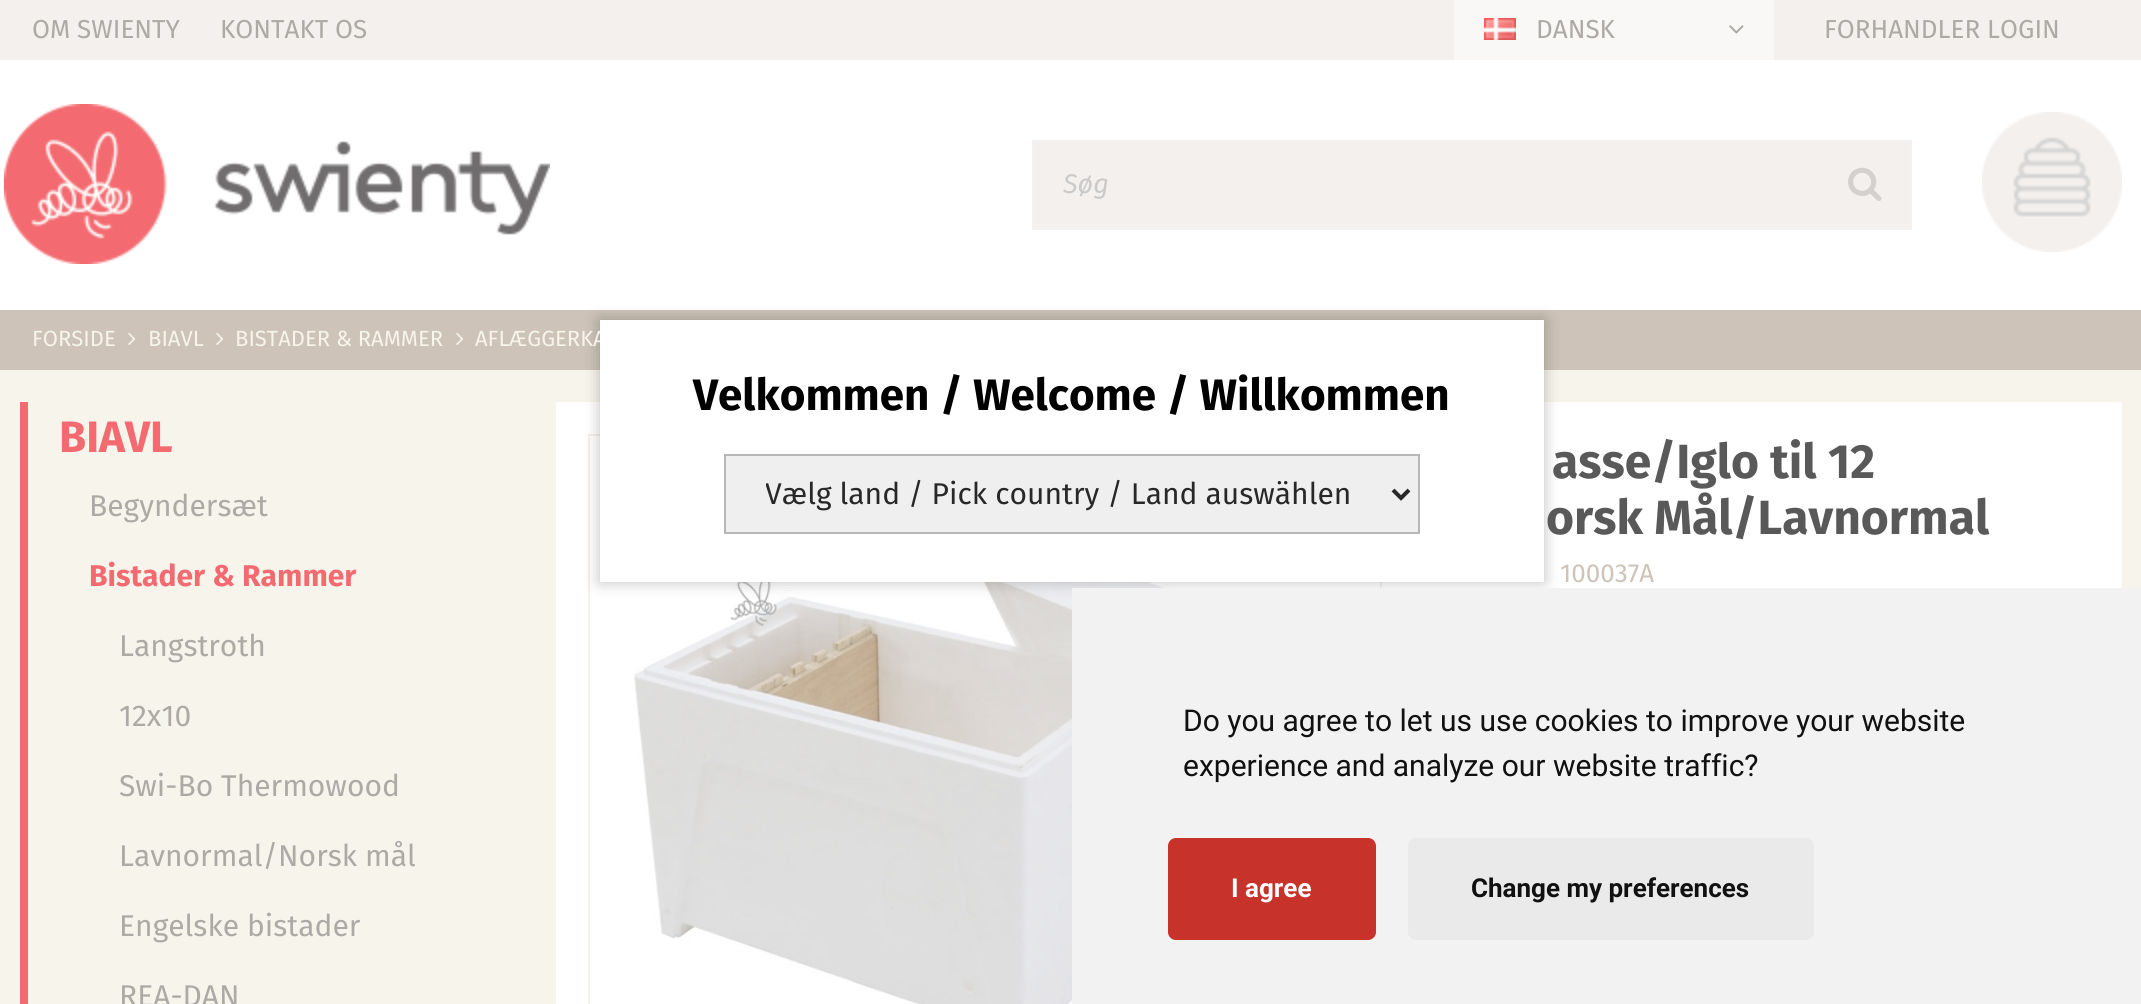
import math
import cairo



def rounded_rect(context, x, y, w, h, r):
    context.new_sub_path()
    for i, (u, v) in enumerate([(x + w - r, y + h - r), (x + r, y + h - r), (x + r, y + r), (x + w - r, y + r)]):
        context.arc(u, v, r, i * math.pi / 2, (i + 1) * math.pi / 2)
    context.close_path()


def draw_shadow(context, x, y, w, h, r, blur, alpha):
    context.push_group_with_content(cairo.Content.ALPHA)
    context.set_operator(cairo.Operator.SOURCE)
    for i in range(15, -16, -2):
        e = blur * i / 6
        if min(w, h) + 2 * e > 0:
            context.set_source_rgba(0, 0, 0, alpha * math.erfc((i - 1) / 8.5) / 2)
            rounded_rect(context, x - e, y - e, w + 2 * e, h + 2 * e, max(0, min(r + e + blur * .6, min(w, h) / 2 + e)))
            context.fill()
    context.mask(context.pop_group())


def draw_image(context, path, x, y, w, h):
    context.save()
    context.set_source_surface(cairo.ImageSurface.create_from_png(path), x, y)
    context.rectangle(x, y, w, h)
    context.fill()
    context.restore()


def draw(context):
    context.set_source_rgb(247 / 255, 244 / 255, 236 / 255)
    context.paint()
    context.set_source_rgb(243 / 255, 240 / 255, 237 / 255)
    context.rectangle(0, 0, 2141, 60)
    context.fill()
    context.set_source_rgb(249 / 255, 248 / 255, 247 / 255)
    context.rectangle(1454, 0, 320, 60)
    context.fill()
    draw_image(context, "images/1.png", 1484, 18, 32, 22)
    draw_image(context, "images/2.png", 1729, 25, 15, 9)
    context.set_source_rgb(1, 1, 1)
    context.rectangle(0, 60, 2141, 250)
    context.fill()
    draw_image(context, "images/3.png", 4, 104, 546, 160)
    context.set_source_rgb(243 / 255, 240 / 255, 237 / 255)
    context.rectangle(1033, 141, 878, 88)
    context.fill_preserve()
    context.set_source_rgb(242 / 255, 242 / 255, 242 / 255)
    context.stroke()
    draw_image(context, "images/4.png", 1848, 167, 34, 34)
    draw_image(context, "images/5.png", 1982, 112, 140, 140)
    context.set_source_rgb(205 / 255, 195 / 255, 184 / 255)
    context.rectangle(0, 310, 2141, 60)
    context.fill()
    draw_image(context, "images/6.png", 128, 332, 8, 13)
    draw_image(context, "images/6.png", 216, 332, 8, 13)
    draw_image(context, "images/6.png", 456, 332, 8, 13)
    context.set_source_rgb(243 / 255, 107 / 255, 113 / 255)
    context.rectangle(20, 402, 8, 602)
    context.fill()
    context.set_source_rgb(1, 1, 1)
    context.rectangle(556, 402, 1566, 602)
    context.fill()
    context.rectangle(589, 435, 792, 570)
    context.set_source_rgb(243 / 255, 240 / 255, 237 / 255)
    context.stroke()
    draw_image(context, "images/7.png", 634, 582, 700, 422)
    context.set_source_rgb(0, 0, 0)
    draw_shadow(context, 600, 320, 944, 262, 0, 8, 0.25)
    context.set_source_rgb(242 / 255, 242 / 255, 242 / 255)
    context.rectangle(1072, 588, 1069, 416)
    context.fill()
    context.set_source_rgb(199 / 255, 50 / 255, 42 / 255)
    rounded_rect(context, 1168, 838, 208, 102, 8)
    context.fill()
    context.set_source_rgb(234 / 255, 234 / 255, 234 / 255)
    rounded_rect(context, 1408, 838, 406, 102, 8)
    context.fill()
    context.select_font_face("Fira Sans")
    context.set_font_size(26)
    context.set_source_rgb(173 / 255, 169 / 255, 165 / 255)
    context.move_to(32, 38)
    context.show_text("OM SWIENTY")
    context.move_to(220, 38)
    context.show_text("KONTAKT OS")
    context.move_to(1536, 38)
    context.show_text("DANSK")
    context.move_to(1824, 38)
    context.show_text("FORHANDLER LOGIN")
    context.select_font_face("Fira Sans", cairo.FontSlant.ITALIC)
    context.set_font_size(27)
    context.set_source_rgb(202 / 255, 202 / 255, 202 / 255)
    context.move_to(1063, 193)
    context.show_text("Søg")
    context.select_font_face("Fira Sans")
    context.set_font_size(22)
    context.set_source_rgb(247 / 255, 244 / 255, 236 / 255)
    context.move_to(32, 346)
    context.show_text("FORSIDE")
    context.move_to(148, 346)
    context.show_text("BIAVL")
    context.move_to(235, 346)
    context.show_text("BISTADER & RAMMER")
    context.move_to(475, 346)
    context.show_text("AFLÆGGERKA")
    context.select_font_face("Fira Sans", cairo.FontSlant.NORMAL, cairo.FontWeight.BOLD)
    context.set_font_size(44)
    context.set_source_rgb(243 / 255, 107 / 255, 113 / 255)
    context.move_to(59, 452)
    context.show_text("BIAVL")
    context.select_font_face("Fira Sans")
    context.set_font_size(30)
    context.set_source_rgb(173 / 255, 169 / 255, 165 / 255)
    context.move_to(89, 516)
    context.show_text("Begyndersæt")
    context.select_font_face("Fira Sans", cairo.FontSlant.NORMAL, cairo.FontWeight.BOLD)
    context.set_source_rgb(243 / 255, 107 / 255, 113 / 255)
    context.move_to(89, 586)
    context.show_text("Bistader & Rammer")
    context.select_font_face("Fira Sans")
    context.set_source_rgb(173 / 255, 169 / 255, 165 / 255)
    context.move_to(119, 656)
    context.show_text("Langstroth")
    context.move_to(119, 726)
    context.show_text("12x10")
    context.move_to(119, 796)
    context.show_text("Swi-Bo Thermowood")
    context.move_to(119, 866)
    context.show_text("Lavnormal/Norsk mål")
    context.move_to(119, 936)
    context.show_text("Engelske bistader")
    context.move_to(119, 1006)
    context.show_text("REA-DAN")
    context.select_font_face("Fira Sans", cairo.FontSlant.NORMAL, cairo.FontWeight.BOLD)
    context.set_font_size(48)
    context.set_source_rgb(89 / 255, 89 / 255, 89 / 255)
    context.move_to(1552, 478)
    context.show_text("asse/Iglo til 12")
    context.move_to(1546, 534)
    context.show_text("orsk Mål/Lavnormal")
    context.select_font_face("Fira Sans")
    context.set_font_size(26)
    context.set_source_rgb(205 / 255, 195 / 255, 184 / 255)
    context.move_to(1560, 582)
    context.show_text("100037A")
    context.set_source_rgb(1, 1, 1)
    context.rectangle(600, 320, 944, 262)
    context.fill()
    context.select_font_face("Fira Sans", cairo.FontSlant.NORMAL, cairo.FontWeight.BOLD)
    context.set_font_size(44)
    context.set_source_rgb(0, 0, 0)
    context.move_to(693, 410)
    context.show_text("Velkommen / Welcome / Willkommen")
    context.set_source_rgb(239 / 255, 239 / 255, 239 / 255)
    context.rectangle(725, 455, 694, 78)
    context.fill_preserve()
    context.set_source_rgb(183 / 255, 183 / 255, 183 / 255)
    context.stroke()
    context.new_path()
    context.move_to(1393, 490)
    context.line_to(1401, 498)
    context.line_to(1409, 490)
    context.set_source_rgb(40 / 255, 40 / 255, 40 / 255)
    context.set_line_width(4)
    context.stroke()
    context.save()
    context.rectangle(766, 474, 588, 40)
    context.clip()
    context.select_font_face("Fira Sans")
    context.set_font_size(30)
    context.move_to(765, 504)
    context.show_text("Vælg land / Pick country / Land auswählen")
    context.restore()
    context.select_font_face("Roboto")
    context.set_font_size(30)
    context.set_source_rgb(17 / 255, 17 / 255, 17 / 255)
    context.move_to(1183, 731)
    context.show_text("Do you agree to let us use cookies to improve your website")
    context.move_to(1183, 776)
    context.show_text("experience and analyze our website traffic?")
    context.select_font_face("Roboto", cairo.FontSlant.NORMAL, cairo.FontWeight.BOLD)
    context.set_font_size(26)
    context.set_source_rgb(1, 1, 1)
    context.move_to(1231, 897)
    context.show_text("I agree")
    context.set_source_rgb(17 / 255, 17 / 255, 17 / 255)
    context.move_to(1471, 897)
    context.show_text("Change my preferences")


surface = cairo.ImageSurface(cairo.Format.RGB24, 2141, 1004)
context = cairo.Context(surface)
options = cairo.FontOptions()
options.set_hint_metrics(cairo.HintMetrics.OFF)
options.set_hint_style(cairo.HintStyle.NONE)
context.set_font_options(options)
context.set_miter_limit(4)
draw(context)
surface.write_to_png("out.png")
